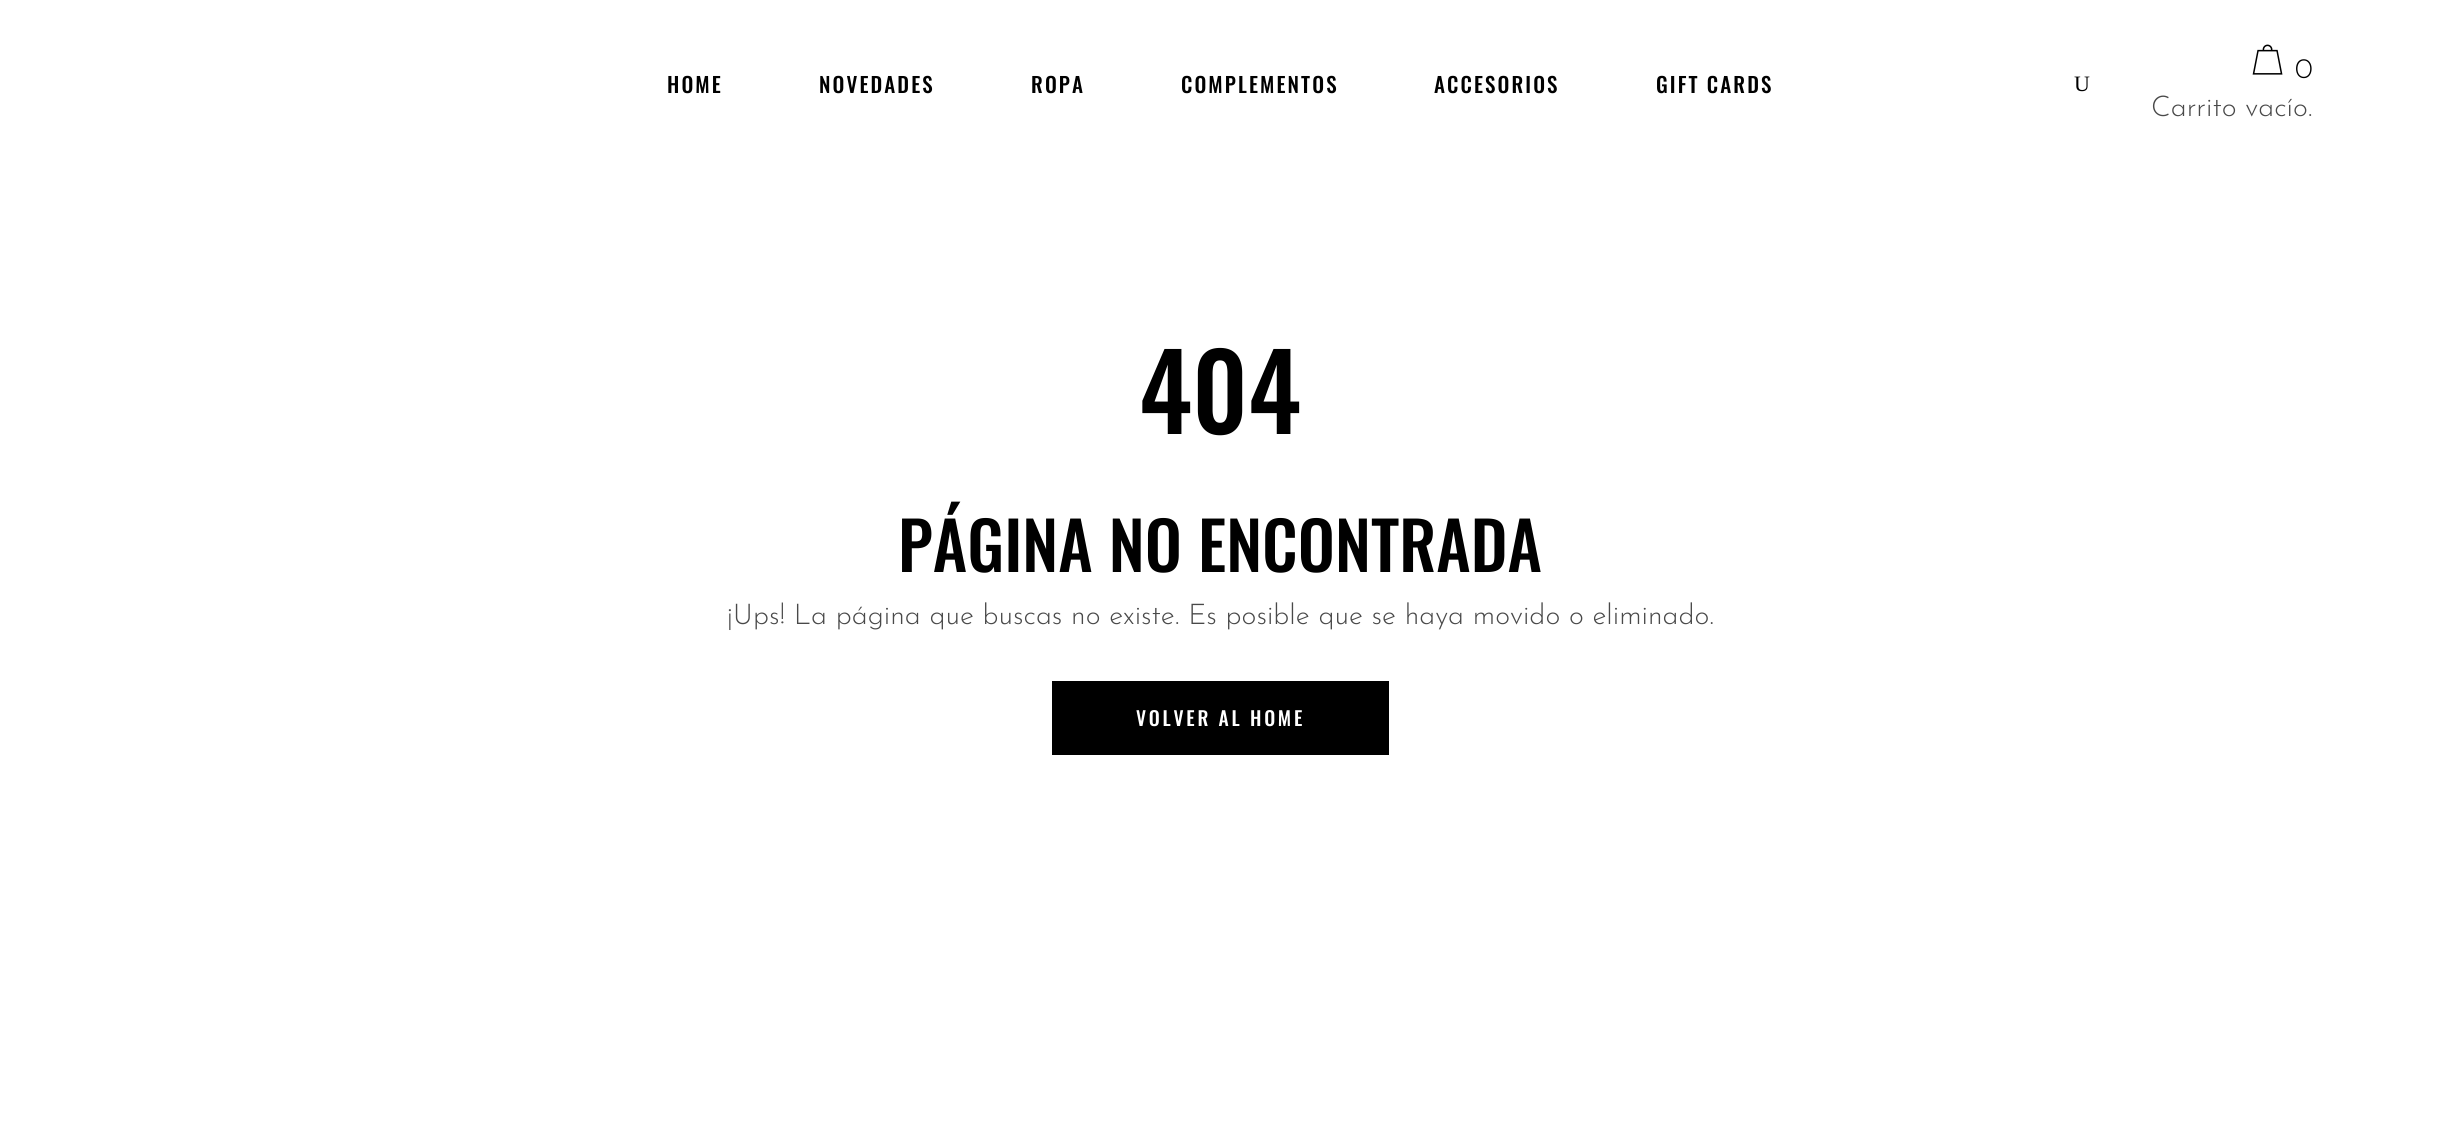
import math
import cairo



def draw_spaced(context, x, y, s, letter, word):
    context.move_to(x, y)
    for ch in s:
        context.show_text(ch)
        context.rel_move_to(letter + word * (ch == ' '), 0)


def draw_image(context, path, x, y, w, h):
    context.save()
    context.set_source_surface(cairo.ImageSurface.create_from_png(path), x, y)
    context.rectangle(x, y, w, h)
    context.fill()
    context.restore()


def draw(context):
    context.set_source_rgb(1, 1, 1)
    context.paint()
    draw_image(context, "images/1.png", 2252, 44, 31, 31)
    context.set_source_rgb(0, 0, 0)
    context.rectangle(1052, 681, 337, 74)
    context.fill()
    context.select_font_face("Oswald Medium")
    context.set_font_size(21)
    draw_spaced(context, 667, 93, "HOME", 2.1, 0)
    draw_spaced(context, 819, 93, "NOVEDADES", 2.1, 0)
    draw_spaced(context, 1031, 93, "ROPA", 2.1, 0)
    draw_spaced(context, 1181, 93, "COMPLEMENTOS", 2.1, 0)
    draw_spaced(context, 1434, 93, "ACCESORIOS", 2.1, 0)
    draw_spaced(context, 1656, 93, "GIFT CARDS", 2.1, 0)
    context.select_font_face("Liberation Serif")
    context.set_font_size(22)
    context.move_to(2074, 91)
    context.show_text("U")
    context.select_font_face("Josefin Sans Light")
    context.set_font_size(28.5)
    context.move_to(2295, 78)
    context.show_text("0")
    context.set_source_rgb(73 / 255, 73 / 255, 73 / 255)
    context.move_to(2151, 116)
    context.show_text("Carrito vacío.")
    context.select_font_face("Oswald Medium")
    context.set_font_size(105)
    context.set_source_rgb(0, 0, 0)
    context.move_to(1139, 434)
    context.show_text("404")
    context.set_font_size(66)
    context.move_to(898, 572)
    context.show_text("PÁGINA NO ENCONTRADA")
    context.select_font_face("Josefin Sans Light")
    context.set_font_size(28.5)
    context.set_source_rgb(73 / 255, 73 / 255, 73 / 255)
    context.move_to(727, 624)
    context.show_text("¡Ups! La página que buscas no existe. Es posible que se haya movido o eliminado.")
    context.select_font_face("Oswald Medium")
    context.set_font_size(19.5)
    context.set_source_rgb(1, 1, 1)
    draw_spaced(context, 1136, 726, "VOLVER AL HOME", 2.75, 0)


surface = cairo.ImageSurface(cairo.Format.RGB24, 2440, 1129)
context = cairo.Context(surface)
options = cairo.FontOptions()
options.set_hint_metrics(cairo.HintMetrics.OFF)
options.set_hint_style(cairo.HintStyle.NONE)
context.set_font_options(options)
context.set_miter_limit(4)
draw(context)
surface.write_to_png("out.png")
